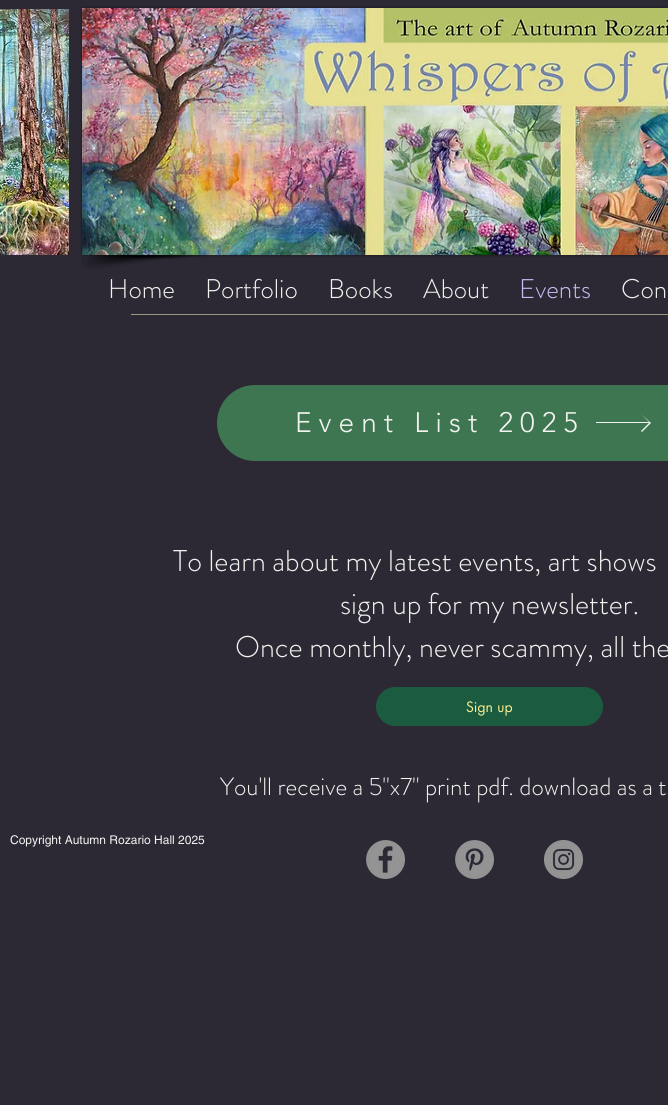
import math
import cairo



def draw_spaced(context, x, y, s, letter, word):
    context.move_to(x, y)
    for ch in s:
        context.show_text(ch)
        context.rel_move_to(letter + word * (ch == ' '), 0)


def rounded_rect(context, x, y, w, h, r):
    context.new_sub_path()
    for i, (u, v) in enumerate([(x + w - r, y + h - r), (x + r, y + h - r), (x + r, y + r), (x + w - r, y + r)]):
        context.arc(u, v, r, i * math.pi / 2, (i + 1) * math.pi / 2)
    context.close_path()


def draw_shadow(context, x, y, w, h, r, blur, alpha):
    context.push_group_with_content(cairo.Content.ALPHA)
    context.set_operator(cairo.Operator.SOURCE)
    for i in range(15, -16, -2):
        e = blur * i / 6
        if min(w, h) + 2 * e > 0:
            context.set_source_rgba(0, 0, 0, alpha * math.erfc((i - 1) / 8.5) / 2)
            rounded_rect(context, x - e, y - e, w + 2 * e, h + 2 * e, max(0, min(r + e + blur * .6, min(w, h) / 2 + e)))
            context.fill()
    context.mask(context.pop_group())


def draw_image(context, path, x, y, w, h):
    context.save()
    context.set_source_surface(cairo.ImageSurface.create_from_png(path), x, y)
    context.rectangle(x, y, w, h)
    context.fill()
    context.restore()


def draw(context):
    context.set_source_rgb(44 / 255, 41 / 255, 53 / 255)
    context.paint()
    draw_image(context, "images/1.png", 0, 9, 69, 246)
    context.set_source_rgb(0, 0, 0)
    draw_shadow(context, 82, 8, 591, 247, 0, 1.5, 0.5)
    draw_image(context, "images/2.png", 82, 8, 586, 247)
    draw_image(context, "images/3.png", 81, 255, 126, 14)
    context.set_source_rgb(158 / 255, 150 / 255, 131 / 255)
    context.rectangle(131, 314, 537, 1)
    context.fill()
    context.set_source_rgb(63 / 255, 118 / 255, 82 / 255)
    rounded_rect(context, 217, 385, 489, 76, 38)
    context.fill()
    context.set_source_rgb(241 / 255, 243 / 255, 238 / 255)
    context.new_path()
    context.move_to(641, 414)
    context.line_to(649, 422)
    context.line_to(596, 422)
    context.line_to(596, 423)
    context.line_to(649, 423)
    context.line_to(641, 431)
    context.line_to(642, 432)
    context.line_to(651, 423)
    context.close_path()
    context.fill()
    context.set_source_rgb(27 / 255, 91 / 255, 63 / 255)
    rounded_rect(context, 376, 687, 227, 39, 19.5)
    context.fill()
    draw_image(context, "images/4.png", 366, 840, 39, 39)
    draw_image(context, "images/5.png", 455, 840, 39, 39)
    draw_image(context, "images/6.png", 544, 840, 39, 39)
    context.select_font_face("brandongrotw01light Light")
    context.set_font_size(27)
    context.set_source_rgb(241 / 255, 243 / 255, 238 / 255)
    context.move_to(108, 298)
    context.show_text("Home")
    context.move_to(205, 298)
    context.show_text("Portfolio")
    context.move_to(328, 298)
    context.show_text("Books")
    context.move_to(423, 298)
    context.show_text("About")
    context.set_source_rgb(201 / 255, 187 / 255, 240 / 255)
    context.move_to(519, 298)
    context.show_text("Events")
    context.set_source_rgb(241 / 255, 243 / 255, 238 / 255)
    context.move_to(621, 298)
    context.show_text("Con")
    context.select_font_face("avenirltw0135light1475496 Light")
    context.set_font_size(28)
    draw_spaced(context, 295, 432, "Event List 2025", 7, 0)
    context.select_font_face("brandongrotw01light Light")
    context.set_font_size(30)
    context.move_to(173, 571)
    context.show_text("To learn about my latest events, art shows")
    context.move_to(340, 614)
    context.show_text("sign up for my newsletter.")
    context.move_to(235, 657)
    context.show_text("Once monthly, never scammy, all the")
    context.set_font_size(25)
    context.move_to(220, 795)
    context.show_text("You'll receive a 5\"x7\" print pdf. download as a t")
    context.select_font_face("futura")
    context.set_font_size(14)
    context.set_source_rgb(1, 240 / 255, 148 / 255)
    context.move_to(466, 712)
    context.show_text("Sign up")
    context.select_font_face("helvetica")
    context.set_font_size(12)
    context.set_source_rgb(241 / 255, 243 / 255, 238 / 255)
    context.move_to(10, 844)
    context.show_text("Copyright Autumn Rozario Hall 2025")


surface = cairo.ImageSurface(cairo.Format.RGB24, 668, 1105)
context = cairo.Context(surface)
options = cairo.FontOptions()
options.set_hint_metrics(cairo.HintMetrics.OFF)
options.set_hint_style(cairo.HintStyle.NONE)
context.set_font_options(options)
context.set_miter_limit(4)
draw(context)
surface.write_to_png("out.png")
